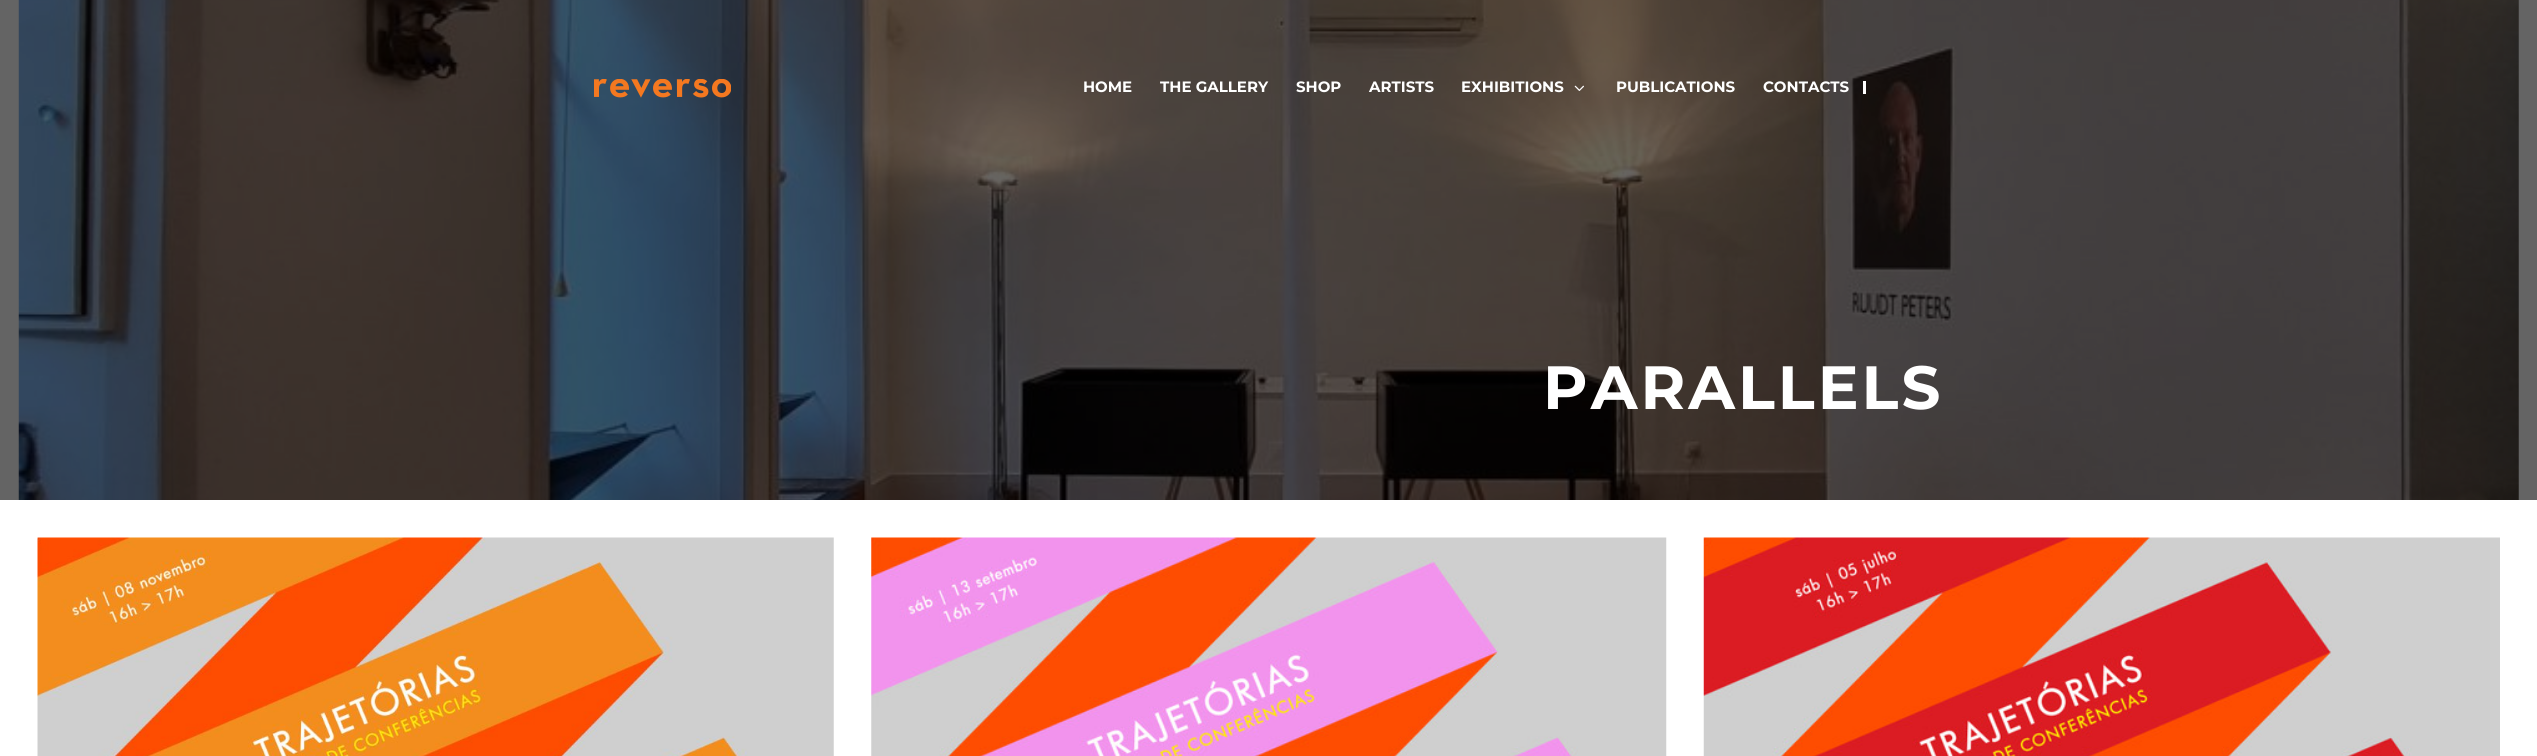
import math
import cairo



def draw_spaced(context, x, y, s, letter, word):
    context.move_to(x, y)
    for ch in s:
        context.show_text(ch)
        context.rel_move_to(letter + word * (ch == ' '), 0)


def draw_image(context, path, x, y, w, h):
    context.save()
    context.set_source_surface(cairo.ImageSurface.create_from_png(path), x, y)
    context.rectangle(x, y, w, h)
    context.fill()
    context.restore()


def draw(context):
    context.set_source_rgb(100 / 255, 100 / 255, 100 / 255)
    context.paint()
    draw_image(context, "images/3.png", 18, 0, 2501, 500)
    draw_image(context, "images/1.png", 594, 79, 137, 19)
    draw_image(context, "images/2.png", 1574, 85, 10, 6)
    context.set_source_rgb(1, 1, 1)
    context.rectangle(1863, 81, 3, 13)
    context.fill()
    context.rectangle(0, 500, 2537, 256)
    context.fill()
    draw_image(context, "images/4.png", 37, 537, 797, 219)
    draw_image(context, "images/5.png", 871, 537, 796, 219)
    draw_image(context, "images/6.png", 1703, 537, 797, 219)
    context.select_font_face("Montserrat Thin")
    context.set_font_size(15)
    context.move_to(1083, 92)
    context.show_text("HOME")
    context.move_to(1160, 92)
    context.show_text("THE GALLERY")
    context.move_to(1296, 92)
    context.show_text("SHOP")
    context.move_to(1369, 92)
    context.show_text("ARTISTS")
    context.move_to(1461, 92)
    context.show_text("EXHIBITIONS")
    context.move_to(1616, 92)
    context.show_text("PUBLICATIONS")
    context.move_to(1763, 92)
    context.show_text("CONTACTS")
    context.set_font_size(61)
    draw_spaced(context, 1543, 409, "PARALLELS", 3, 0)


surface = cairo.ImageSurface(cairo.Format.RGB24, 2537, 756)
context = cairo.Context(surface)
options = cairo.FontOptions()
options.set_hint_metrics(cairo.HintMetrics.OFF)
options.set_hint_style(cairo.HintStyle.NONE)
context.set_font_options(options)
context.set_miter_limit(4)
draw(context)
surface.write_to_png("out.png")
